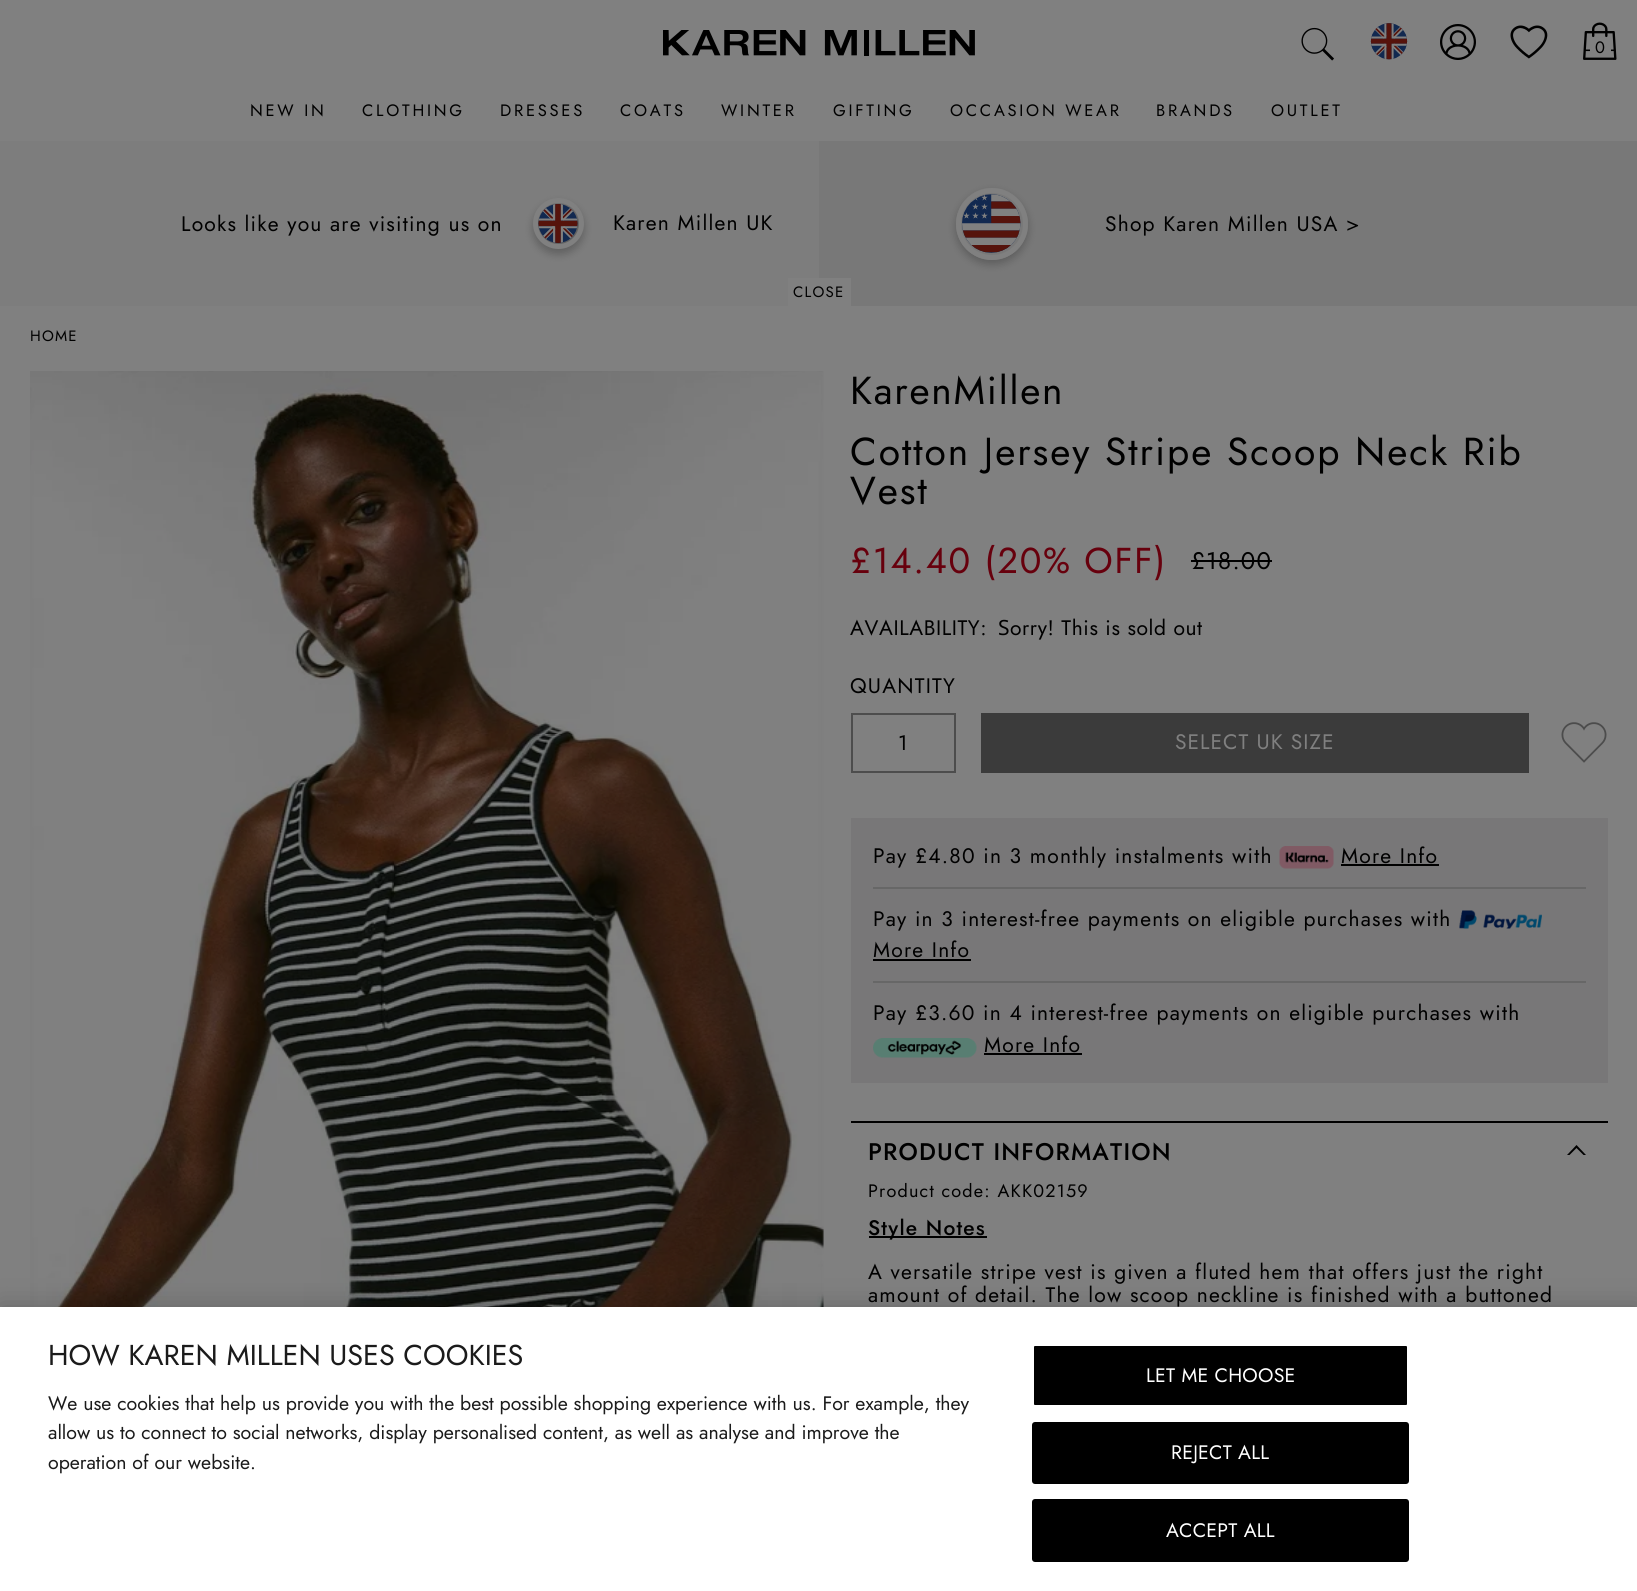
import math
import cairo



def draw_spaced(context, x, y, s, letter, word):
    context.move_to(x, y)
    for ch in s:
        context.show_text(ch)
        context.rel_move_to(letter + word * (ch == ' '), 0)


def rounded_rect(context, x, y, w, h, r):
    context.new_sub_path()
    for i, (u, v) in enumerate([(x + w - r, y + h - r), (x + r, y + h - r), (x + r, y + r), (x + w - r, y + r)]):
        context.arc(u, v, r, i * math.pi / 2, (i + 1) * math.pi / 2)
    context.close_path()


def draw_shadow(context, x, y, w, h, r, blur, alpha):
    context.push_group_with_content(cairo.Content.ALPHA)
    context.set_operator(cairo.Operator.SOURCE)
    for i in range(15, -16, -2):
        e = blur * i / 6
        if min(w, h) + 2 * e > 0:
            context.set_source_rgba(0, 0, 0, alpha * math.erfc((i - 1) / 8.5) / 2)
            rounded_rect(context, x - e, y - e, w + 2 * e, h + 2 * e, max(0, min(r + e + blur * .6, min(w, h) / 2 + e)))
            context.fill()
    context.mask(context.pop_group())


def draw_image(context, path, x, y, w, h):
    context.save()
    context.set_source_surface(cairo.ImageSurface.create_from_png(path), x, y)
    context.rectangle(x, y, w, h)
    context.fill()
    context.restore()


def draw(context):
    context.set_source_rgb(128 / 255, 128 / 255, 128 / 255)
    context.paint()
    draw_image(context, "images/1.png", 663, 30, 312, 26)
    draw_image(context, "images/2.png", 1301, 27, 33, 34)
    draw_image(context, "images/3.png", 1370, 23, 38, 37)
    draw_image(context, "images/4.png", 1440, 24, 36, 36)
    draw_image(context, "images/5.png", 1510, 25, 38, 34)
    draw_image(context, "images/6.png", 1583, 22, 34, 38)
    context.set_source_rgb(128 / 255, 128 / 255, 128 / 255)
    context.rectangle(1590, 49, 21, 3)
    context.fill()
    context.set_source_rgb(125 / 255, 125 / 255, 125 / 255)
    context.rectangle(0, 141, 819, 165)
    context.fill()
    context.set_source_rgb(0, 0, 0)
    draw_shadow(context, 533, 203, 51, 51, 25.5, 4.5, 0.24)
    draw_image(context, "images/7.png", 538, 204, 40, 39)
    context.arc(558.5, 223.5, 23, 0, 2 * math.pi)
    context.set_source_rgb(128 / 255, 128 / 255, 128 / 255)
    context.set_line_width(5)
    context.stroke()
    context.set_source_rgb(120 / 255, 120 / 255, 120 / 255)
    context.rectangle(819, 141, 818, 165)
    context.fill()
    context.set_source_rgb(128 / 255, 128 / 255, 128 / 255)
    context.rectangle(788, 278, 63, 28)
    context.fill()
    context.save()
    context.set_fill_rule(cairo.FillRule.EVEN_ODD)
    context.new_path()
    context.move_to(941, 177)
    context.line_to(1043, 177)
    context.line_to(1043, 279)
    context.line_to(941, 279)
    context.close_path()
    context.move_to(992, 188)
    context.curve_to(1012, 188, 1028, 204, 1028, 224)
    context.curve_to(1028, 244, 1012, 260, 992, 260)
    context.curve_to(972, 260, 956, 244, 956, 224)
    context.curve_to(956, 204, 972, 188, 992, 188)
    context.close_path()
    context.clip()
    context.set_source_rgb(0, 0, 0)
    draw_shadow(context, 956, 192, 72, 72, 36, 4.5, 0.24)
    context.restore()
    draw_image(context, "images/8.png", 962, 194, 59, 59)
    context.arc(992, 224, 33.5, 0, 2 * math.pi)
    context.stroke()
    draw_image(context, "images/9.png", 30, 371, 794, 936)
    context.set_source_rgb(0, 0, 0)
    context.rectangle(1191, 560, 81, 2)
    context.fill()
    context.rectangle(852, 714, 103, 58)
    context.set_source_rgb(77 / 255, 77 / 255, 77 / 255)
    context.set_line_width(2)
    context.stroke()
    context.set_source_rgb(59 / 255, 59 / 255, 59 / 255)
    context.rectangle(981, 713, 548, 60)
    context.fill()
    draw_image(context, "images/10.png", 1561, 722, 46, 41)
    context.set_source_rgb(120 / 255, 119 / 255, 120 / 255)
    context.rectangle(851, 818, 757, 265)
    context.fill()
    context.set_source_rgb(103 / 255, 103 / 255, 103 / 255)
    context.rectangle(873, 887, 713, 2)
    context.fill()
    draw_image(context, "images/11.png", 1279, 846, 55, 23)
    context.set_source_rgb(0, 0, 0)
    context.rectangle(1341, 864, 98, 2)
    context.fill()
    context.set_source_rgb(103 / 255, 103 / 255, 103 / 255)
    context.rectangle(873, 981, 713, 2)
    context.fill()
    draw_image(context, "images/12.png", 1459, 910, 83, 19)
    context.set_source_rgb(0, 0, 0)
    context.rectangle(873, 959, 98, 2)
    context.fill()
    draw_image(context, "images/13.png", 873, 1038, 104, 20)
    context.rectangle(984, 1053, 98, 2)
    context.fill()
    context.rectangle(851, 1121, 757, 2)
    context.fill()
    context.new_path()
    context.move_to(1569.5, 1155)
    context.line_to(1576.5, 1148)
    context.line_to(1583.5, 1155)
    context.line_to(1586, 1155)
    context.line_to(1576.5, 1145)
    context.line_to(1567, 1155)
    context.close_path()
    context.fill()
    context.rectangle(869, 1236, 118, 2)
    context.fill()
    context.set_source_rgb(0, 0, 0)
    draw_shadow(context, 0, 1307, 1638, 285, 0, 13.5, 0.2)
    context.set_source_rgb(1, 1, 1)
    context.rectangle(0, 1307, 1637, 284)
    context.fill()
    context.set_source_rgb(0, 0, 0)
    rounded_rect(context, 1033, 1345, 375, 61, 2)
    context.fill_preserve()
    context.set_source_rgb(1, 1, 1)
    context.stroke()
    context.set_source_rgb(0, 0, 0)
    rounded_rect(context, 1033, 1423, 375, 60, 2)
    context.fill_preserve()
    context.stroke()
    rounded_rect(context, 1033, 1500, 375, 61, 2)
    context.fill_preserve()
    context.stroke()
    context.select_font_face("Jost")
    context.set_font_size(16.5)
    draw_spaced(context, 1595, 53, "0", 1.2, 0)
    draw_spaced(context, 250, 116, "NEW IN", 2.75, 0)
    draw_spaced(context, 362, 116, "CLOTHING", 2.75, 0)
    draw_spaced(context, 500, 116, "DRESSES", 2.75, 0)
    draw_spaced(context, 620, 116, "COATS", 2.75, 0)
    draw_spaced(context, 721, 116, "WINTER", 2.75, 0)
    draw_spaced(context, 833, 116, "GIFTING", 2.75, 0)
    draw_spaced(context, 950, 116, "OCCASION WEAR", 2.75, 0)
    draw_spaced(context, 1156, 116, "BRANDS", 2.75, 0)
    draw_spaced(context, 1271, 116, "OUTLET", 2.75, 0)
    context.set_font_size(21)
    draw_spaced(context, 181, 231, "Looks like you are visiting us on", 1.2, 0)
    draw_spaced(context, 613, 230, "Karen Millen UK", 1.2, 0)
    context.set_font_size(15)
    draw_spaced(context, 793, 297, "CLOSE", 1.2, 0)
    context.set_font_size(21)
    draw_spaced(context, 1105, 231, "Shop Karen Millen USA >", 1.2, 0)
    context.set_font_size(15)
    draw_spaced(context, 30, 341, "HOME", 1.2, 0)
    context.set_font_size(39)
    draw_spaced(context, 850, 404, "KarenMillen", 1.75, 0)
    draw_spaced(context, 850, 465, "Cotton Jersey Stripe Scoop Neck Rib", 1.95, 0)
    draw_spaced(context, 850, 504, "Vest", 1.95, 0)
    context.set_font_size(36)
    context.set_source_rgb(103 / 255, 0, 13 / 255)
    draw_spaced(context, 850, 573, "£14.40 (20% OFF)", 1.75, 0)
    context.set_font_size(24)
    context.set_source_rgb(0, 0, 0)
    draw_spaced(context, 1191, 569, "£18.00", 1.2, 0)
    context.set_font_size(21)
    draw_spaced(context, 850, 635, "AVAILABILITY:", 0.6, 0)
    context.select_font_face("Noto Sans")
    draw_spaced(context, 998, 635, "S", 0.6, 0)
    context.select_font_face("Jost")
    draw_spaced(context, 1010, 635, "orry! This is sold out", 0.6, 0)
    draw_spaced(context, 850, 693, "QUANTITY", 1.2, 0)
    context.move_to(898, 750)
    context.show_text("1")
    context.set_source_rgb(128 / 255, 128 / 255, 128 / 255)
    draw_spaced(context, 1175, 749, "SELECT UK SIZE", 1, 0)
    context.set_source_rgb(0, 0, 0)
    draw_spaced(context, 873, 863, "Pay £4.80 in 3 monthly instalments with", 1.2, 0)
    draw_spaced(context, 1341, 863, "More Info", 1.2, 0)
    draw_spaced(context, 873, 926, "Pay in 3 interest-free payments on eligible purchases with", 1.2, 0)
    draw_spaced(context, 873, 957, "More Info", 1.2, 0)
    draw_spaced(context, 873, 1020, "Pay £3.60 in 4 interest-free payments on eligible purchases with", 1.2, 0)
    draw_spaced(context, 984, 1052, "More Info", 1.2, 0)
    context.select_font_face("Jost Medium")
    context.set_font_size(24)
    draw_spaced(context, 868, 1160, "PRODUCT INFORMATION", 1.2, 0)
    context.select_font_face("Jost")
    context.set_font_size(18)
    draw_spaced(context, 868, 1197, "Product code: AKK02159", 1.2, 0)
    context.select_font_face("Jost Medium")
    context.set_font_size(21)
    draw_spaced(context, 868, 1235, "Style Notes", 1.2, 0)
    context.select_font_face("Jost")
    draw_spaced(context, 868, 1279, "A versatile stripe vest is given a fluted hem that offers just the right", 1.2, 0)
    draw_spaced(context, 868, 1302, "amount of detail. The low scoop neckline is finished with a buttoned", 1.2, 0)
    context.set_font_size(28.75)
    context.set_source_rgb(27 / 255, 27 / 255, 27 / 255)
    context.move_to(48, 1365)
    context.show_text("HOW KAREN MILLEN USES COOKIES")
    context.set_font_size(19.5)
    context.move_to(48, 1410)
    context.show_text("We use cookies that help us provide you with the best possible shopping experience with us. For example, they")
    context.move_to(48, 1439)
    context.show_text("allow us to connect to social networks, display personalised content, as well as analyse and improve the")
    context.move_to(48, 1469)
    context.show_text("operation of our website.")
    context.set_source_rgb(1, 1, 1)
    draw_spaced(context, 1146, 1382, "LET ME CHOOSE", 0.25, 0)
    draw_spaced(context, 1171, 1459, "REJECT ALL", 0.25, 0)
    draw_spaced(context, 1166, 1537, "ACCEPT ALL", 0.25, 0)


surface = cairo.ImageSurface(cairo.Format.RGB24, 1637, 1591)
context = cairo.Context(surface)
options = cairo.FontOptions()
options.set_hint_metrics(cairo.HintMetrics.OFF)
options.set_hint_style(cairo.HintStyle.NONE)
context.set_font_options(options)
context.set_miter_limit(4)
draw(context)
surface.write_to_png("out.png")
